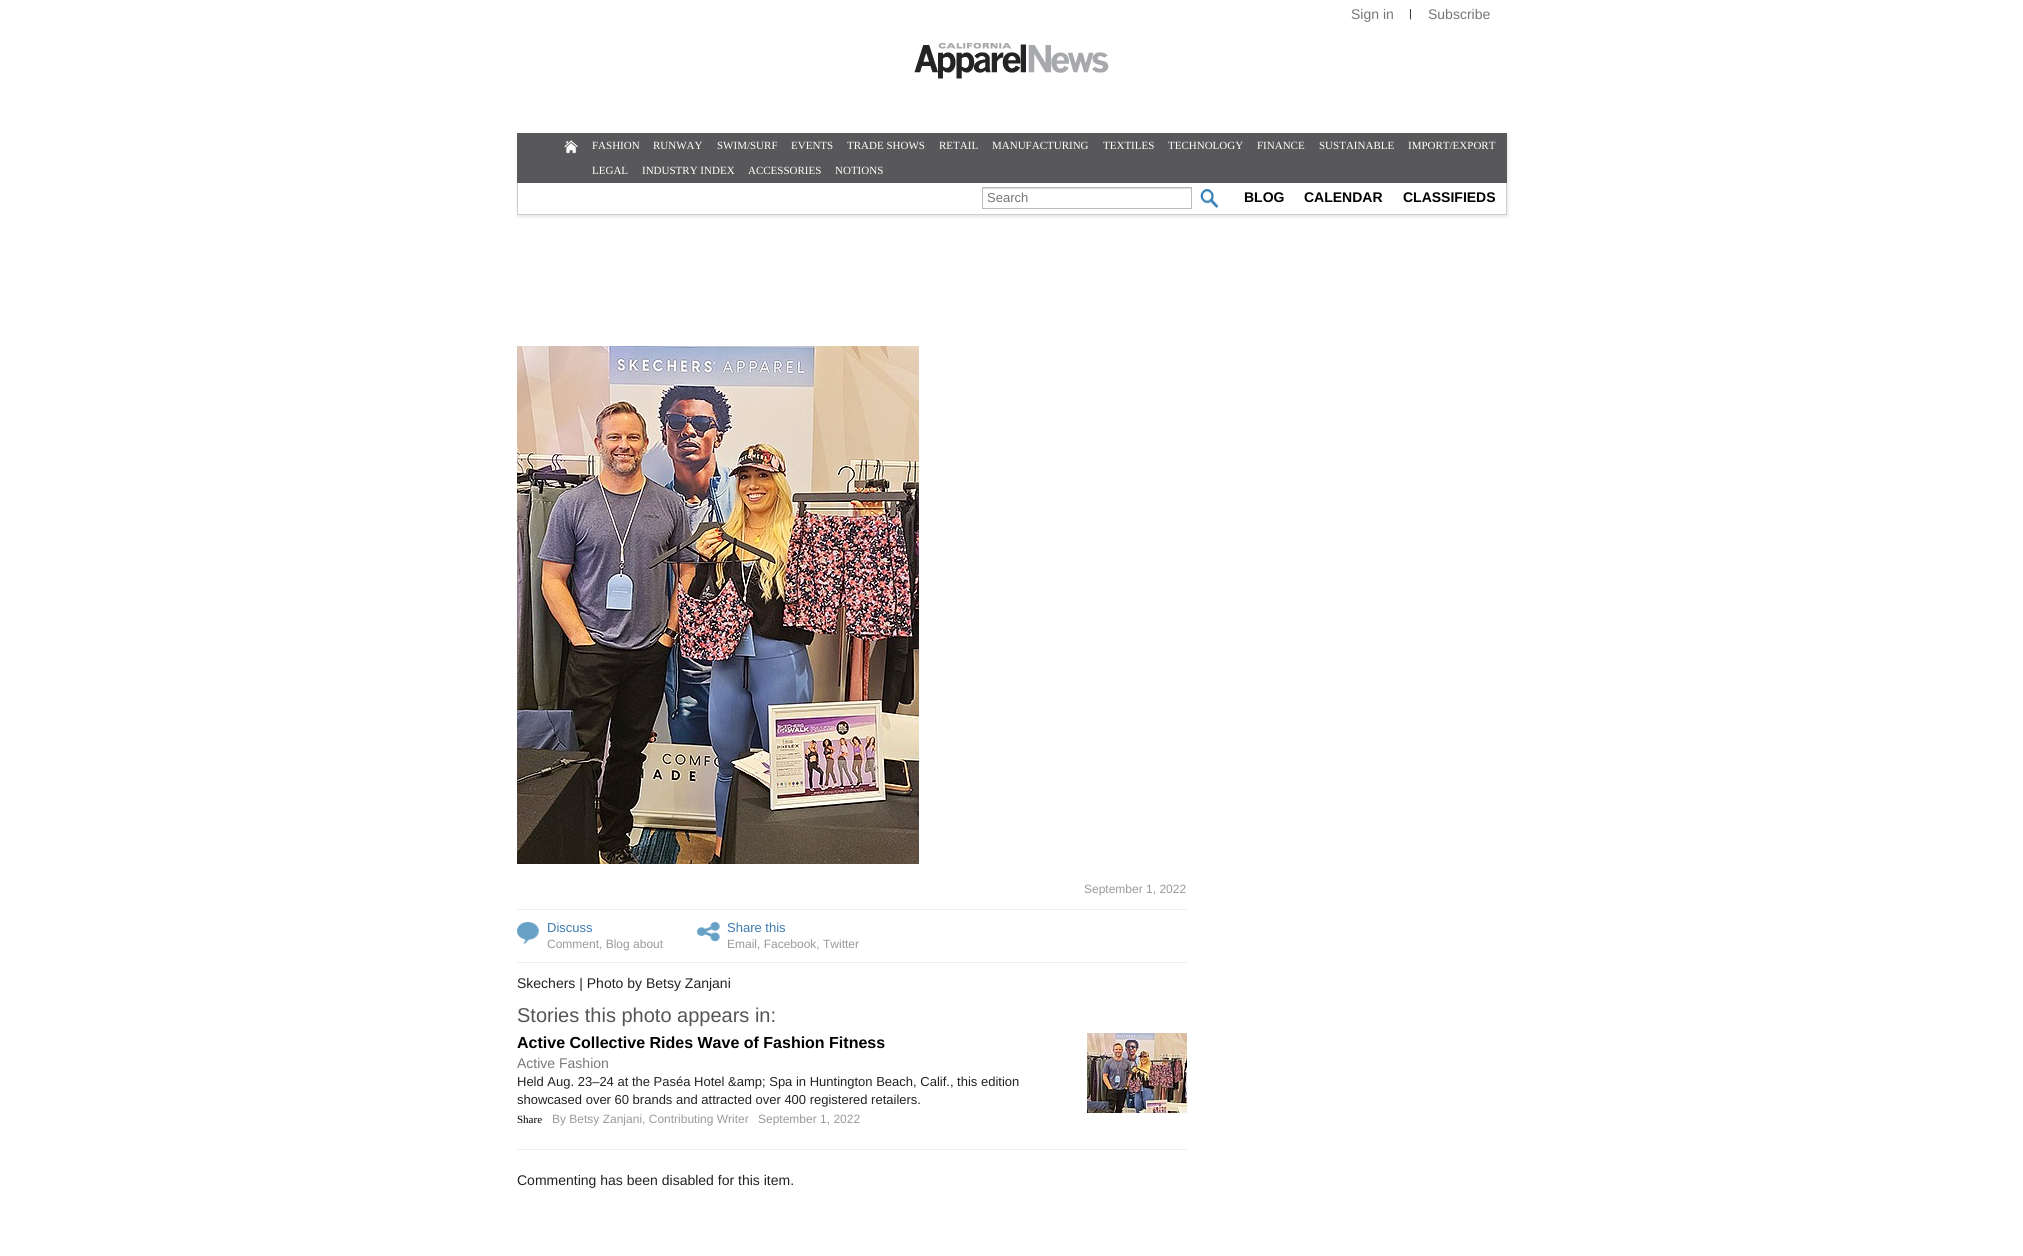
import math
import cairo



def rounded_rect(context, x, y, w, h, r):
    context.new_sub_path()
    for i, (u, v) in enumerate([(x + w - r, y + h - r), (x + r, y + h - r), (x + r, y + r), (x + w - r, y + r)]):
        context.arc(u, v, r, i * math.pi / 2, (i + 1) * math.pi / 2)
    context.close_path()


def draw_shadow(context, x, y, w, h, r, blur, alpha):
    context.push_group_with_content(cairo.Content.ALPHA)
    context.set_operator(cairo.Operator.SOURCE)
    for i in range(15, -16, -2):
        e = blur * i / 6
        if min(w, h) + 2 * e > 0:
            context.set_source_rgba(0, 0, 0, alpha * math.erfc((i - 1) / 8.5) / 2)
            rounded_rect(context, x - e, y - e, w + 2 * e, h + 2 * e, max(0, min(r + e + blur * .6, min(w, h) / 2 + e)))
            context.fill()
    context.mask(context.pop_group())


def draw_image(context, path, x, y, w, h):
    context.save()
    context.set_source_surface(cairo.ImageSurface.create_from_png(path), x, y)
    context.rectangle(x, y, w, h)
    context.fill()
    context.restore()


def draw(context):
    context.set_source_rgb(1, 1, 1)
    context.paint()
    draw_image(context, "images/1.png", 914, 43, 195, 36)
    context.set_source_rgb(0, 0, 0)
    draw_shadow(context, 518, 135, 990, 82, 0, 2, 0.1)
    context.set_source_rgb(88 / 255, 88 / 255, 90 / 255)
    context.rectangle(517, 133, 990, 50)
    context.fill()
    draw_image(context, "images/2.png", 564, 140, 14, 14)
    context.set_source_rgb(1, 1, 1)
    context.rectangle(518, 183, 988, 31)
    context.fill()
    context.set_source_rgb(204 / 255, 204 / 255, 204 / 255)
    context.rectangle(1506, 183, 1, 32)
    context.fill()
    context.rectangle(517, 214, 990, 1)
    context.fill()
    context.rectangle(517, 183, 1, 32)
    context.fill()
    context.set_source_rgb(217 / 255, 217 / 255, 217 / 255)
    context.rectangle(983, 188, 208, 1)
    context.fill()
    context.rectangle(982.5, 187.5, 209, 21)
    context.set_source_rgb(187 / 255, 187 / 255, 187 / 255)
    context.set_line_width(1)
    context.stroke()
    draw_image(context, "images/3.png", 1200, 189, 18, 19)
    draw_image(context, "images/4.png", 517, 346, 402, 518)
    context.set_source_rgb(238 / 255, 238 / 255, 238 / 255)
    context.rectangle(517, 909, 670, 1)
    context.fill()
    context.rectangle(517, 962, 670, 1)
    context.fill()
    draw_image(context, "images/5.png", 517, 922, 22, 22)
    draw_image(context, "images/6.png", 697, 922, 23, 20)
    draw_image(context, "images/7.png", 1087, 1033, 100, 80)
    context.rectangle(517, 1149, 670, 1)
    context.fill()
    context.select_font_face("Liberation Sans")
    context.set_font_size(14)
    context.set_source_rgb(119 / 255, 119 / 255, 119 / 255)
    context.move_to(1351, 19)
    context.show_text("Sign in")
    context.set_font_size(11)
    context.set_source_rgb(34 / 255, 34 / 255, 34 / 255)
    context.move_to(1409, 17)
    context.show_text("|")
    context.set_font_size(14)
    context.set_source_rgb(119 / 255, 119 / 255, 119 / 255)
    context.move_to(1428, 19)
    context.show_text("Subscribe")
    context.select_font_face("Liberation Serif")
    context.set_font_size(11)
    context.set_source_rgb(1, 1, 1)
    context.move_to(592, 149)
    context.show_text("FASHION")
    context.move_to(653, 149)
    context.show_text("RUNWAY")
    context.move_to(717, 149)
    context.show_text("SWIM/SURF")
    context.move_to(791, 149)
    context.show_text("EVENTS")
    context.move_to(847, 149)
    context.show_text("TRADE SHOWS")
    context.move_to(939, 149)
    context.show_text("RETAIL")
    context.move_to(992, 149)
    context.show_text("MANUFACTURING")
    context.move_to(1103, 149)
    context.show_text("TEXTILES")
    context.move_to(1168, 149)
    context.show_text("TECHNOLOGY")
    context.move_to(1257, 149)
    context.show_text("FINANCE")
    context.move_to(1319, 149)
    context.show_text("SUSTAINABLE")
    context.move_to(1408, 149)
    context.show_text("IMPORT/EXPORT")
    context.move_to(592, 174)
    context.show_text("LEGAL")
    context.move_to(642, 174)
    context.show_text("INDUSTRY INDEX")
    context.move_to(748, 174)
    context.show_text("ACCESSORIES")
    context.move_to(835, 174)
    context.show_text("NOTIONS")
    context.select_font_face("Liberation Sans")
    context.set_font_size(13)
    context.set_source_rgb(119 / 255, 119 / 255, 119 / 255)
    context.move_to(987, 202)
    context.show_text("Search")
    context.select_font_face("Liberation Sans", cairo.FontSlant.NORMAL, cairo.FontWeight.BOLD)
    context.set_font_size(14)
    context.set_source_rgb(0, 0, 0)
    context.move_to(1244, 202)
    context.show_text("BLOG")
    context.move_to(1304, 202)
    context.show_text("CALENDAR")
    context.move_to(1403, 202)
    context.show_text("CLASSIFIEDS")
    context.select_font_face("Liberation Sans")
    context.set_font_size(12)
    context.set_source_rgb(153 / 255, 153 / 255, 153 / 255)
    context.move_to(1084, 893)
    context.show_text("September 1, 2022")
    context.set_font_size(13)
    context.set_source_rgb(61 / 255, 124 / 255, 177 / 255)
    context.move_to(547, 932)
    context.show_text("Discuss")
    context.set_font_size(12)
    context.set_source_rgb(153 / 255, 153 / 255, 153 / 255)
    context.move_to(547, 948)
    context.show_text("Comment, Blog about")
    context.set_font_size(13)
    context.set_source_rgb(61 / 255, 124 / 255, 177 / 255)
    context.move_to(727, 932)
    context.show_text("Share this")
    context.set_font_size(12)
    context.set_source_rgb(153 / 255, 153 / 255, 153 / 255)
    context.move_to(727, 948)
    context.show_text("Email, Facebook, Twitter")
    context.set_font_size(14)
    context.set_source_rgb(34 / 255, 34 / 255, 34 / 255)
    context.move_to(517, 988)
    context.show_text("Skechers | Photo by Betsy Zanjani")
    context.set_font_size(20)
    context.set_source_rgb(85 / 255, 85 / 255, 85 / 255)
    context.move_to(517, 1022)
    context.show_text("Stories this photo appears in:")
    context.select_font_face("Liberation Sans", cairo.FontSlant.NORMAL, cairo.FontWeight.BOLD)
    context.set_font_size(16)
    context.set_source_rgb(0, 0, 0)
    context.move_to(517, 1048)
    context.show_text("Active Collective Rides Wave of Fashion Fitness")
    context.select_font_face("Liberation Sans")
    context.set_font_size(14)
    context.set_source_rgb(119 / 255, 119 / 255, 119 / 255)
    context.move_to(517, 1068)
    context.show_text("Active Fashion")
    context.set_font_size(13)
    context.set_source_rgb(34 / 255, 34 / 255, 34 / 255)
    context.move_to(517, 1086)
    context.show_text("Held Aug. 23–24 at the Paséa Hotel &amp; Spa in Huntington Beach, Calif., this edition")
    context.move_to(517, 1104)
    context.show_text("showcased over 60 brands and attracted over 400 registered retailers.")
    context.select_font_face("Liberation Serif")
    context.set_font_size(11)
    context.set_source_rgb(0, 0, 0)
    context.move_to(517, 1123)
    context.show_text("Share")
    context.select_font_face("Liberation Sans")
    context.set_font_size(12)
    context.set_source_rgb(153 / 255, 153 / 255, 153 / 255)
    context.move_to(552, 1123)
    context.show_text("By Betsy Zanjani, Contributing Writer")
    context.move_to(758, 1123)
    context.show_text("September 1, 2022")
    context.set_font_size(14)
    context.set_source_rgb(34 / 255, 34 / 255, 34 / 255)
    context.move_to(517, 1185)
    context.show_text("Commenting has been disabled for this item.")


surface = cairo.ImageSurface(cairo.Format.RGB24, 2023, 1256)
context = cairo.Context(surface)
options = cairo.FontOptions()
options.set_hint_metrics(cairo.HintMetrics.OFF)
options.set_hint_style(cairo.HintStyle.NONE)
context.set_font_options(options)
context.set_miter_limit(4)
draw(context)
surface.write_to_png("out.png")
